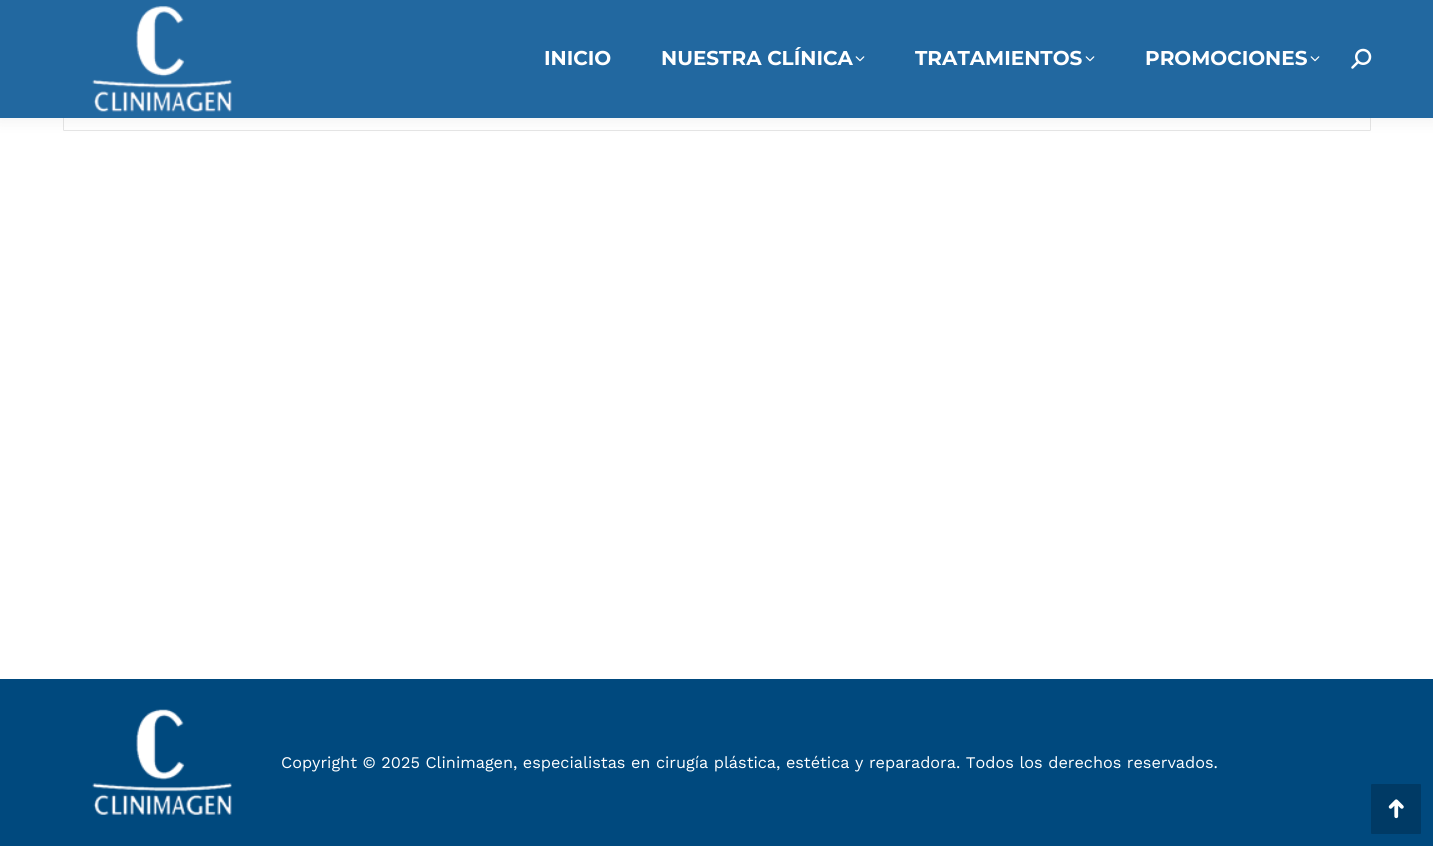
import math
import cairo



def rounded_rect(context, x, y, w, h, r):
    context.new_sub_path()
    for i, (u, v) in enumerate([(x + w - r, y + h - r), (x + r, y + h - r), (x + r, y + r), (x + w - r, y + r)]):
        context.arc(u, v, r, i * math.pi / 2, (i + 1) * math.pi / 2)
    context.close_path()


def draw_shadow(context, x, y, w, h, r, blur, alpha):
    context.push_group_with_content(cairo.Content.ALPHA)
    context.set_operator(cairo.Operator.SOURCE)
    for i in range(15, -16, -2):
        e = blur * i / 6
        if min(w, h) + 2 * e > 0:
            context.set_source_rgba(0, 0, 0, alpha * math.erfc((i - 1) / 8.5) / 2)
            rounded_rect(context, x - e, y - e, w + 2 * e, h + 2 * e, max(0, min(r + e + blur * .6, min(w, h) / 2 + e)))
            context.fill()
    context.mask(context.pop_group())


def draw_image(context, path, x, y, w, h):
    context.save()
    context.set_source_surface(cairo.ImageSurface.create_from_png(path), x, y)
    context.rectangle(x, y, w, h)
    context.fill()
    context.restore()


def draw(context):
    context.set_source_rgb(1, 1, 1)
    context.paint()
    rounded_rect(context, 63.5, 84.5, 1307, 46, 0.5)
    context.set_source_rgb(229 / 255, 229 / 255, 229 / 255)
    context.set_line_width(1)
    context.stroke()
    context.set_source_rgb(0, 0, 0)
    draw_shadow(context, -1, -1, 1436, 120, 0, 9.5, 0.07)
    context.set_source_rgb(34 / 255, 104 / 255, 160 / 255)
    context.rectangle(0, 0, 1433, 118)
    context.fill()
    draw_image(context, "images/1.png", 92, 6, 140, 106)
    draw_image(context, "images/2.png", 855, 56, 10, 6)
    draw_image(context, "images/2.png", 1085, 56, 10, 6)
    draw_image(context, "images/2.png", 1310, 56, 10, 6)
    draw_image(context, "images/3.png", 1351, 48, 21, 21)
    context.set_source_rgb(0, 73 / 255, 126 / 255)
    context.rectangle(0, 679, 1433, 167)
    context.fill()
    draw_image(context, "images/4.png", 92, 709, 140, 106)
    context.set_source_rgb(0, 58 / 255, 101 / 255)
    rounded_rect(context, 1371, 784, 50, 50, 1)
    context.fill()
    draw_image(context, "images/5.png", 1388, 799, 16, 20)
    context.select_font_face("Montserrat", cairo.FontSlant.NORMAL, cairo.FontWeight.BOLD)
    context.set_font_size(20)
    context.set_source_rgb(1, 1, 1)
    context.move_to(544, 65)
    context.show_text("INICIO")
    context.move_to(661, 65)
    context.show_text("NUESTRA CLÍNICA")
    context.move_to(915, 65)
    context.show_text("TRATAMIENTOS")
    context.move_to(1145, 65)
    context.show_text("PROMOCIONES")
    context.select_font_face("Work Sans")
    context.set_font_size(16.25)
    context.move_to(281, 768)
    context.show_text("Copyright © 2025 Clinimagen, especialistas en cirugía plástica, estética y reparadora. Todos los derechos reservados.")


surface = cairo.ImageSurface(cairo.Format.RGB24, 1433, 846)
context = cairo.Context(surface)
options = cairo.FontOptions()
options.set_hint_metrics(cairo.HintMetrics.OFF)
options.set_hint_style(cairo.HintStyle.NONE)
context.set_font_options(options)
context.set_miter_limit(4)
draw(context)
surface.write_to_png("out.png")
